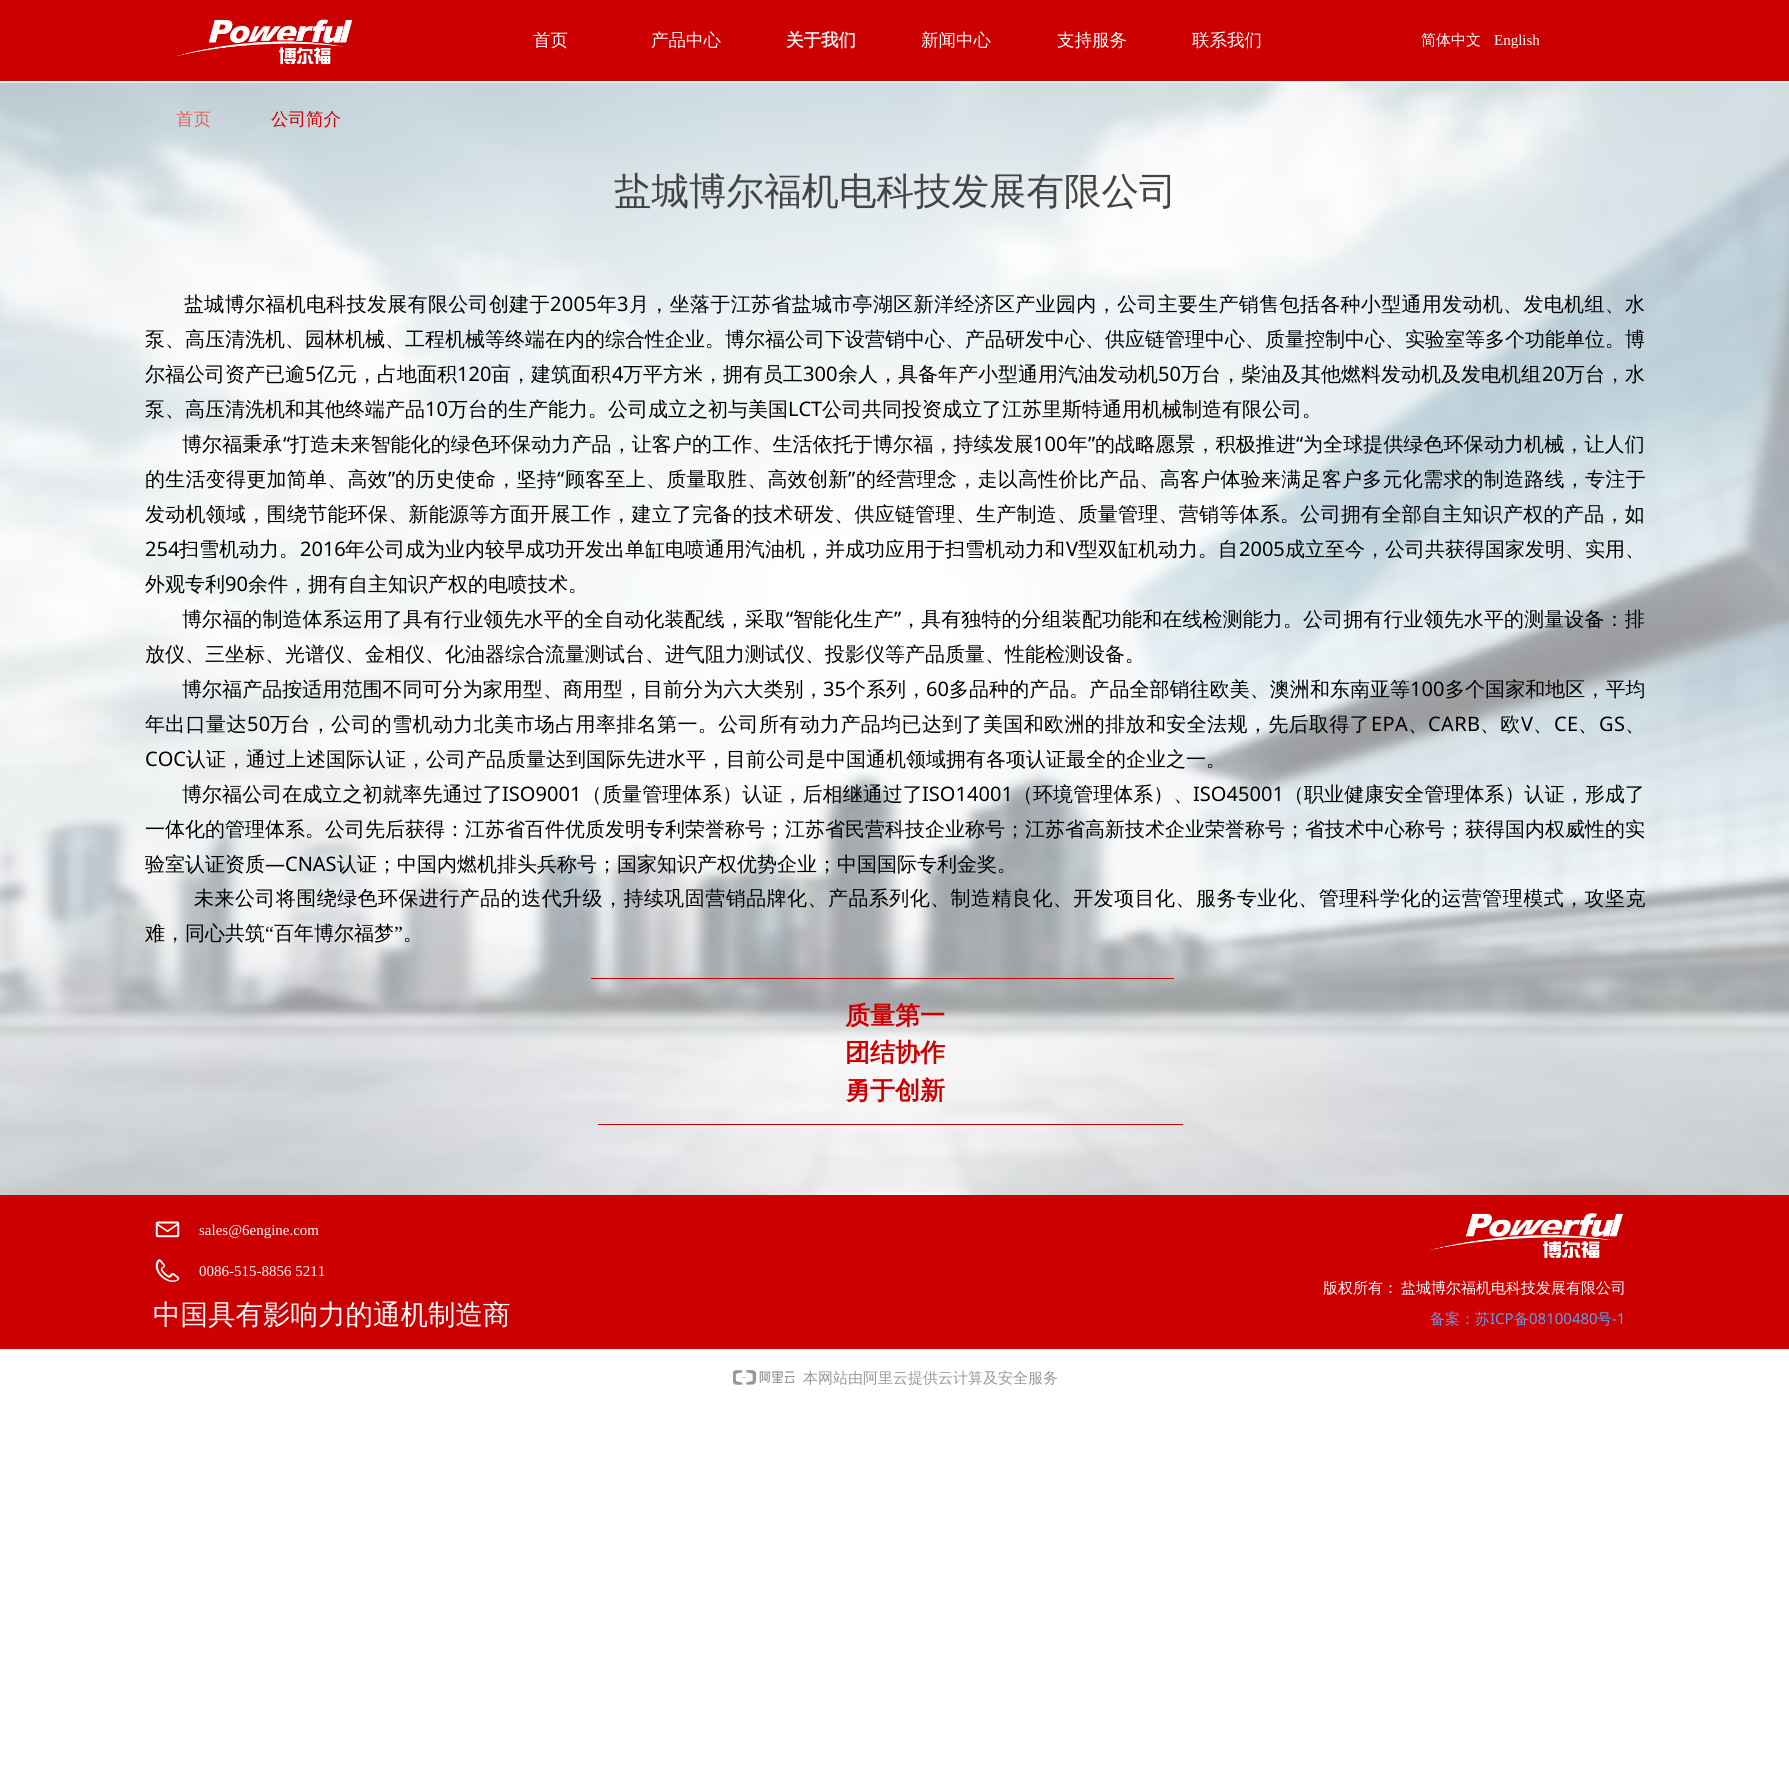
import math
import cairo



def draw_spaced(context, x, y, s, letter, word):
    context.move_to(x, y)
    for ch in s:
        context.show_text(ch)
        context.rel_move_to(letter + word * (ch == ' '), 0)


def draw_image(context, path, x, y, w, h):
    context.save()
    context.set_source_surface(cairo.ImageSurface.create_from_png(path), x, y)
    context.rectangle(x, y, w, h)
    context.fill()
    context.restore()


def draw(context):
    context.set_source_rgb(1, 1, 1)
    context.paint()
    context.set_source_rgb(204 / 255, 0, 0)
    context.rectangle(0, 0, 1789, 81)
    context.fill()
    draw_image(context, "images/1.png", 175, 19, 177, 46)
    draw_image(context, "images/2.png", 0, 82, 1789, 1113)
    context.rectangle(591, 978, 583, 1)
    context.fill()
    context.rectangle(598, 1124, 585, 1)
    context.fill()
    context.rectangle(0, 1195, 1789, 154)
    context.fill()
    draw_image(context, "images/3.png", 155, 1221, 25, 17)
    draw_image(context, "images/4.png", 155, 1259, 25, 23)
    draw_image(context, "images/5.png", 1430, 1213, 194, 45)
    draw_image(context, "images/6.png", 733, 1370, 62, 15)
    context.select_font_face("WenQuanYi Zen Hei Medium")
    context.set_font_size(17.5)
    context.set_source_rgb(1, 1, 1)
    context.move_to(533, 46)
    context.show_text("首页")
    context.move_to(651, 46)
    context.show_text("产品中心")
    context.select_font_face("WenQuanYi Zen Hei", cairo.FontSlant.NORMAL, cairo.FontWeight.BOLD)
    context.set_source_rgb(238 / 255, 238 / 255, 238 / 255)
    context.move_to(786, 46)
    context.show_text("关于我们")
    context.select_font_face("WenQuanYi Zen Hei Medium")
    context.set_source_rgb(1, 1, 1)
    context.move_to(921, 46)
    context.show_text("新闻中心")
    context.move_to(1057, 46)
    context.show_text("支持服务")
    context.move_to(1192, 46)
    context.show_text("联系我们")
    context.set_font_size(15)
    context.move_to(1421, 45)
    context.show_text("简体中文")
    context.select_font_face("Liberation Serif")
    context.move_to(1494, 45)
    context.show_text("English")
    context.select_font_face("WenQuanYi Zen Hei Medium")
    context.set_font_size(17.5)
    context.set_source_rgb(224 / 255, 102 / 255, 102 / 255)
    context.move_to(176, 125)
    context.show_text("首页")
    context.set_source_rgb(204 / 255, 0, 0)
    context.move_to(271, 125)
    context.show_text("公司简介")
    context.set_font_size(37.5)
    context.set_source_rgb(68 / 255, 68 / 255, 68 / 255)
    context.move_to(614, 204)
    context.show_text("盐城博尔福机电科技发展有限公司")
    context.set_font_size(20)
    context.set_source_rgb(0, 0, 0)
    draw_spaced(context, 184, 311, "盐城博尔福机电科技发展有限公司创建于", 0.33, 0)
    context.select_font_face("Noto Sans")
    draw_spaced(context, 550, 311, "2005", 0.33, 0)
    context.select_font_face("WenQuanYi Zen Hei Medium")
    draw_spaced(context, 597, 311, "年", 0.33, 0)
    context.select_font_face("Noto Sans")
    draw_spaced(context, 617, 311, "3", 0.33, 0)
    context.select_font_face("WenQuanYi Zen Hei Medium")
    draw_spaced(context, 629, 311, "月，坐落于江苏省盐城市亭湖区新洋经济区产业园内，公司主要生产销售包括各种小型通用发动机、发电机组、水", 0.33, 0)
    context.move_to(145, 346)
    context.show_text("泵、高压清洗机、园林机械、工程机械等终端在内的综合性企业。博尔福公司下设营销中心、产品研发中心、供应链管理中心、质量控制中心、实验室等多个功能单位。博")
    context.move_to(145, 381)
    context.show_text("尔福公司资产已逾")
    context.select_font_face("Noto Sans")
    context.move_to(305, 381)
    context.show_text("5")
    context.select_font_face("WenQuanYi Zen Hei Medium")
    context.move_to(317, 381)
    context.show_text("亿元，占地面积")
    context.select_font_face("Noto Sans")
    context.move_to(457, 381)
    context.show_text("120")
    context.select_font_face("WenQuanYi Zen Hei Medium")
    context.move_to(491, 381)
    context.show_text("亩，建筑面积")
    context.select_font_face("Noto Sans")
    context.move_to(612, 381)
    context.show_text("4")
    context.select_font_face("WenQuanYi Zen Hei Medium")
    context.move_to(623, 381)
    context.show_text("万平方米，拥有员工")
    context.select_font_face("Noto Sans")
    context.move_to(803, 381)
    context.show_text("300")
    context.select_font_face("WenQuanYi Zen Hei Medium")
    context.move_to(838, 381)
    context.show_text("余人，具备年产小型通用汽油发动机")
    context.select_font_face("Noto Sans")
    context.move_to(1158, 381)
    context.show_text("50")
    context.select_font_face("WenQuanYi Zen Hei Medium")
    context.move_to(1181, 381)
    context.show_text("万台，柴油及其他燃料发动机及发电机组")
    context.select_font_face("Noto Sans")
    context.move_to(1542, 381)
    context.show_text("20")
    context.select_font_face("WenQuanYi Zen Hei Medium")
    context.move_to(1565, 381)
    context.show_text("万台，水")
    context.move_to(145, 416)
    context.show_text("泵、高压清洗机和其他终端产品")
    context.select_font_face("Noto Sans")
    context.move_to(425, 416)
    context.show_text("10")
    context.select_font_face("WenQuanYi Zen Hei Medium")
    context.move_to(448, 416)
    context.show_text("万台的生产能力。公司成立之初与美国")
    context.select_font_face("Noto Sans")
    context.move_to(788, 416)
    context.show_text("LCT")
    context.select_font_face("WenQuanYi Zen Hei Medium")
    context.move_to(822, 416)
    context.show_text("公司共同投资成立了江苏里斯特通用机械制造有限公司。")
    draw_spaced(context, 182, 451, "博尔福秉承", 0.1, 0)
    context.select_font_face("Noto Sans")
    draw_spaced(context, 283, 451, "“", 0.1, 0)
    context.select_font_face("WenQuanYi Zen Hei Medium")
    draw_spaced(context, 290, 451, "打造未来智能化的绿色环保动力产品，让客户的工作、生活依托于博尔福，持续发展", 0.1, 0)
    context.select_font_face("Noto Sans")
    draw_spaced(context, 1033, 451, "100", 0.1, 0)
    context.select_font_face("WenQuanYi Zen Hei Medium")
    draw_spaced(context, 1068, 451, "年", 0.1, 0)
    context.select_font_face("Noto Sans")
    draw_spaced(context, 1088, 451, "”", 0.1, 0)
    context.select_font_face("WenQuanYi Zen Hei Medium")
    draw_spaced(context, 1095, 451, "的战略愿景，积极推进", 0.1, 0)
    context.select_font_face("Noto Sans")
    draw_spaced(context, 1296, 451, "“", 0.1, 0)
    context.select_font_face("WenQuanYi Zen Hei Medium")
    draw_spaced(context, 1303, 451, "为全球提供绿色环保动力机械，让人们", 0.1, 0)
    draw_spaced(context, 145, 486, "的生活变得更加简单、高效", 0.25, 0)
    context.select_font_face("Noto Sans")
    draw_spaced(context, 388, 486, "”", 0.25, 0)
    context.select_font_face("WenQuanYi Zen Hei Medium")
    draw_spaced(context, 395, 486, "的历史使命，坚持", 0.25, 0)
    context.select_font_face("Noto Sans")
    draw_spaced(context, 557, 486, "“", 0.25, 0)
    context.select_font_face("WenQuanYi Zen Hei Medium")
    draw_spaced(context, 565, 486, "顾客至上、质量取胜、高效创新", 0.25, 0)
    context.select_font_face("Noto Sans")
    draw_spaced(context, 848, 486, "”", 0.25, 0)
    context.select_font_face("WenQuanYi Zen Hei Medium")
    draw_spaced(context, 856, 486, "的经营理念，走以高性价比产品、高客户体验来满足客户多元化需求的制造路线，专注于", 0.25, 0)
    draw_spaced(context, 145, 521, "发动机领域，围绕节能环保、新能源等方面开展工作，建立了完备的技术研发、供应链管理、生产制造、质量管理、营销等体系。公司拥有全部自主知识产权的产品，如", 0.27, 0)
    context.select_font_face("Noto Sans")
    context.move_to(145, 556)
    context.show_text("254")
    context.select_font_face("WenQuanYi Zen Hei Medium")
    context.move_to(179, 556)
    context.show_text("扫雪机动力。")
    context.select_font_face("Noto Sans")
    context.move_to(300, 556)
    context.show_text("2016")
    context.select_font_face("WenQuanYi Zen Hei Medium")
    context.move_to(345, 556)
    context.show_text("年公司成为业内较早成功开发出单缸电喷通用汽油机，并成功应用于扫雪机动力和")
    context.select_font_face("Noto Sans")
    context.move_to(1066, 556)
    context.show_text("V")
    context.select_font_face("WenQuanYi Zen Hei Medium")
    context.move_to(1078, 556)
    context.show_text("型双缸机动力。自")
    context.select_font_face("Noto Sans")
    context.move_to(1239, 556)
    context.show_text("2005")
    context.select_font_face("WenQuanYi Zen Hei Medium")
    context.move_to(1285, 556)
    context.show_text("成立至今，公司共获得国家发明、实用、")
    context.move_to(145, 591)
    context.show_text("外观专利")
    context.select_font_face("Noto Sans")
    context.move_to(225, 591)
    context.show_text("90")
    context.select_font_face("WenQuanYi Zen Hei Medium")
    context.move_to(248, 591)
    context.show_text("余件，拥有自主知识产权的电喷技术。")
    draw_spaced(context, 182, 626, "博尔福的制造体系运用了具有行业领先水平的全自动化装配线，采取", 0.1, 0)
    context.select_font_face("Noto Sans")
    draw_spaced(context, 786, 626, "“", 0.1, 0)
    context.select_font_face("WenQuanYi Zen Hei Medium")
    draw_spaced(context, 793, 626, "智能化生产", 0.1, 0)
    context.select_font_face("Noto Sans")
    draw_spaced(context, 894, 626, "”", 0.1, 0)
    context.select_font_face("WenQuanYi Zen Hei Medium")
    draw_spaced(context, 901, 626, "，具有独特的分组装配功能和在线检测能力。公司拥有行业领先水平的测量设备：排", 0.1, 0)
    context.move_to(145, 661)
    context.show_text("放仪、三坐标、光谱仪、金相仪、化油器综合流量测试台、进气阻力测试仪、投影仪等产品质量、性能检测设备。")
    draw_spaced(context, 182, 696, "博尔福产品按适用范围不同可分为家用型、商用型，目前分为六大类别，", 0.05, 0)
    context.select_font_face("Noto Sans")
    draw_spaced(context, 823, 696, "35", 0.05, 0)
    context.select_font_face("WenQuanYi Zen Hei Medium")
    draw_spaced(context, 846, 696, "个系列，", 0.05, 0)
    context.select_font_face("Noto Sans")
    draw_spaced(context, 926, 696, "60", 0.05, 0)
    context.select_font_face("WenQuanYi Zen Hei Medium")
    draw_spaced(context, 949, 696, "多品种的产品。产品全部销往欧美、澳洲和东南亚等", 0.05, 0)
    context.select_font_face("Noto Sans")
    draw_spaced(context, 1410, 696, "100", 0.05, 0)
    context.select_font_face("WenQuanYi Zen Hei Medium")
    draw_spaced(context, 1445, 696, "多个国家和地区，平均", 0.05, 0)
    draw_spaced(context, 145, 731, "年出口量达", 0.37, 0)
    context.select_font_face("Noto Sans")
    draw_spaced(context, 247, 731, "50", 0.37, 0)
    context.select_font_face("WenQuanYi Zen Hei Medium")
    draw_spaced(context, 270, 731, "万台，公司的雪机动力北美市场占用率排名第一。公司所有动力产品均已达到了美国和欧洲的排放和安全法规，先后取得了", 0.37, 0)
    context.select_font_face("Noto Sans")
    draw_spaced(context, 1371, 731, "EPA", 0.37, 0)
    context.select_font_face("WenQuanYi Zen Hei Medium")
    draw_spaced(context, 1408, 731, "、", 0.37, 0)
    context.select_font_face("Noto Sans")
    draw_spaced(context, 1428, 731, "CARB", 0.37, 0)
    context.select_font_face("WenQuanYi Zen Hei Medium")
    draw_spaced(context, 1480, 731, "、欧", 0.37, 0)
    context.select_font_face("Noto Sans")
    draw_spaced(context, 1521, 731, "V", 0.37, 0)
    context.select_font_face("WenQuanYi Zen Hei Medium")
    draw_spaced(context, 1533, 731, "、", 0.37, 0)
    context.select_font_face("Noto Sans")
    draw_spaced(context, 1554, 731, "CE", 0.37, 0)
    context.select_font_face("WenQuanYi Zen Hei Medium")
    draw_spaced(context, 1578, 731, "、", 0.37, 0)
    context.select_font_face("Noto Sans")
    draw_spaced(context, 1599, 731, "GS", 0.37, 0)
    context.select_font_face("WenQuanYi Zen Hei Medium")
    draw_spaced(context, 1625, 731, "、", 0.37, 0)
    context.select_font_face("Noto Sans")
    context.move_to(145, 766)
    context.show_text("COC")
    context.select_font_face("WenQuanYi Zen Hei Medium")
    context.move_to(186, 766)
    context.show_text("认证，通过上述国际认证，公司产品质量达到国际先进水平，目前公司是中国通机领域拥有各项认证最全的企业之一。")
    draw_spaced(context, 182, 801, "博尔福公司在成立之初就率先通过了", 0.05, 0)
    context.select_font_face("Noto Sans")
    draw_spaced(context, 502, 801, "ISO9001", 0.05, 0)
    context.select_font_face("WenQuanYi Zen Hei Medium")
    draw_spaced(context, 582, 801, "（质量管理体系）认证，后相继通过了", 0.05, 0)
    context.select_font_face("Noto Sans")
    draw_spaced(context, 922, 801, "ISO14001", 0.05, 0)
    context.select_font_face("WenQuanYi Zen Hei Medium")
    draw_spaced(context, 1013, 801, "（环境管理体系）、", 0.05, 0)
    context.select_font_face("Noto Sans")
    draw_spaced(context, 1193, 801, "ISO45001", 0.05, 0)
    context.select_font_face("WenQuanYi Zen Hei Medium")
    draw_spaced(context, 1284, 801, "（职业健康安全管理体系）认证，形成了", 0.05, 0)
    context.move_to(145, 836)
    context.show_text("一体化的管理体系。公司先后获得：江苏省百件优质发明专利荣誉称号；江苏省民营科技企业称号；江苏省高新技术企业荣誉称号；省技术中心称号；获得国内权威性的实")
    context.move_to(145, 871)
    context.show_text("验室认证资质")
    context.select_font_face("Noto Sans")
    context.move_to(265, 871)
    context.show_text("—CNAS")
    context.select_font_face("WenQuanYi Zen Hei Medium")
    context.move_to(337, 871)
    context.show_text("认证；中国内燃机排头兵称号；国家知识产权优势企业；中国国际专利金奖。")
    draw_spaced(context, 194, 905, "未来公司将围绕绿色环保进行产品的迭代升级，持续巩固营销品牌化、产品系列化、制造精良化、开发项目化、服务专业化、管理科学化的运营管理模式，攻坚克", 0.45, 0)
    context.move_to(145, 940)
    context.show_text("难，同心共筑")
    context.select_font_face("Liberation Serif")
    context.move_to(265, 940)
    context.show_text("“")
    context.select_font_face("WenQuanYi Zen Hei Medium")
    context.move_to(274, 940)
    context.show_text("百年博尔福梦")
    context.select_font_face("Liberation Serif")
    context.move_to(394, 940)
    context.show_text("”")
    context.select_font_face("WenQuanYi Zen Hei Medium")
    context.move_to(403, 940)
    context.show_text("。")
    context.select_font_face("WenQuanYi Zen Hei", cairo.FontSlant.NORMAL, cairo.FontWeight.BOLD)
    context.set_font_size(25)
    context.set_source_rgb(204 / 255, 0, 0)
    context.move_to(845, 1024)
    context.show_text("质量第一")
    context.move_to(845, 1061)
    context.show_text("团结协作")
    context.move_to(845, 1099)
    context.show_text("勇于创新")
    context.select_font_face("Liberation Serif")
    context.set_font_size(15)
    context.set_source_rgb(1, 1, 1)
    context.move_to(199, 1235)
    context.show_text("sales@6engine.com")
    context.move_to(199, 1276)
    context.show_text("0086-515-8856 5211")
    context.select_font_face("WenQuanYi Zen Hei Medium")
    context.move_to(1323, 1293)
    context.show_text("版权所有：")
    context.move_to(1401, 1293)
    context.show_text("盐城博尔福机电科技发展有限公司")
    context.set_font_size(27.5)
    context.move_to(153, 1324)
    context.show_text("中国具有影响力的通机制造商")
    context.set_font_size(15)
    context.set_source_rgb(96 / 255, 158 / 255, 233 / 255)
    context.move_to(1430, 1324)
    context.show_text("备案：苏")
    context.select_font_face("Noto Sans")
    context.move_to(1490, 1324)
    context.show_text("ICP")
    context.select_font_face("WenQuanYi Zen Hei Medium")
    context.move_to(1514, 1324)
    context.show_text("备")
    context.select_font_face("Noto Sans")
    context.move_to(1529, 1324)
    context.show_text("08100480")
    context.select_font_face("WenQuanYi Zen Hei Medium")
    context.move_to(1597, 1324)
    context.show_text("号")
    context.select_font_face("Noto Sans")
    context.move_to(1612, 1324)
    context.show_text("-1")
    context.select_font_face("WenQuanYi Zen Hei Medium")
    context.set_source_rgb(152 / 255, 152 / 255, 152 / 255)
    context.move_to(803, 1383)
    context.show_text("本网站由阿里云提供云计算及安全服务")


surface = cairo.ImageSurface(cairo.Format.RGB24, 1789, 1783)
context = cairo.Context(surface)
options = cairo.FontOptions()
options.set_hint_metrics(cairo.HintMetrics.OFF)
options.set_hint_style(cairo.HintStyle.NONE)
context.set_font_options(options)
context.set_miter_limit(4)
draw(context)
surface.write_to_png("out.png")
